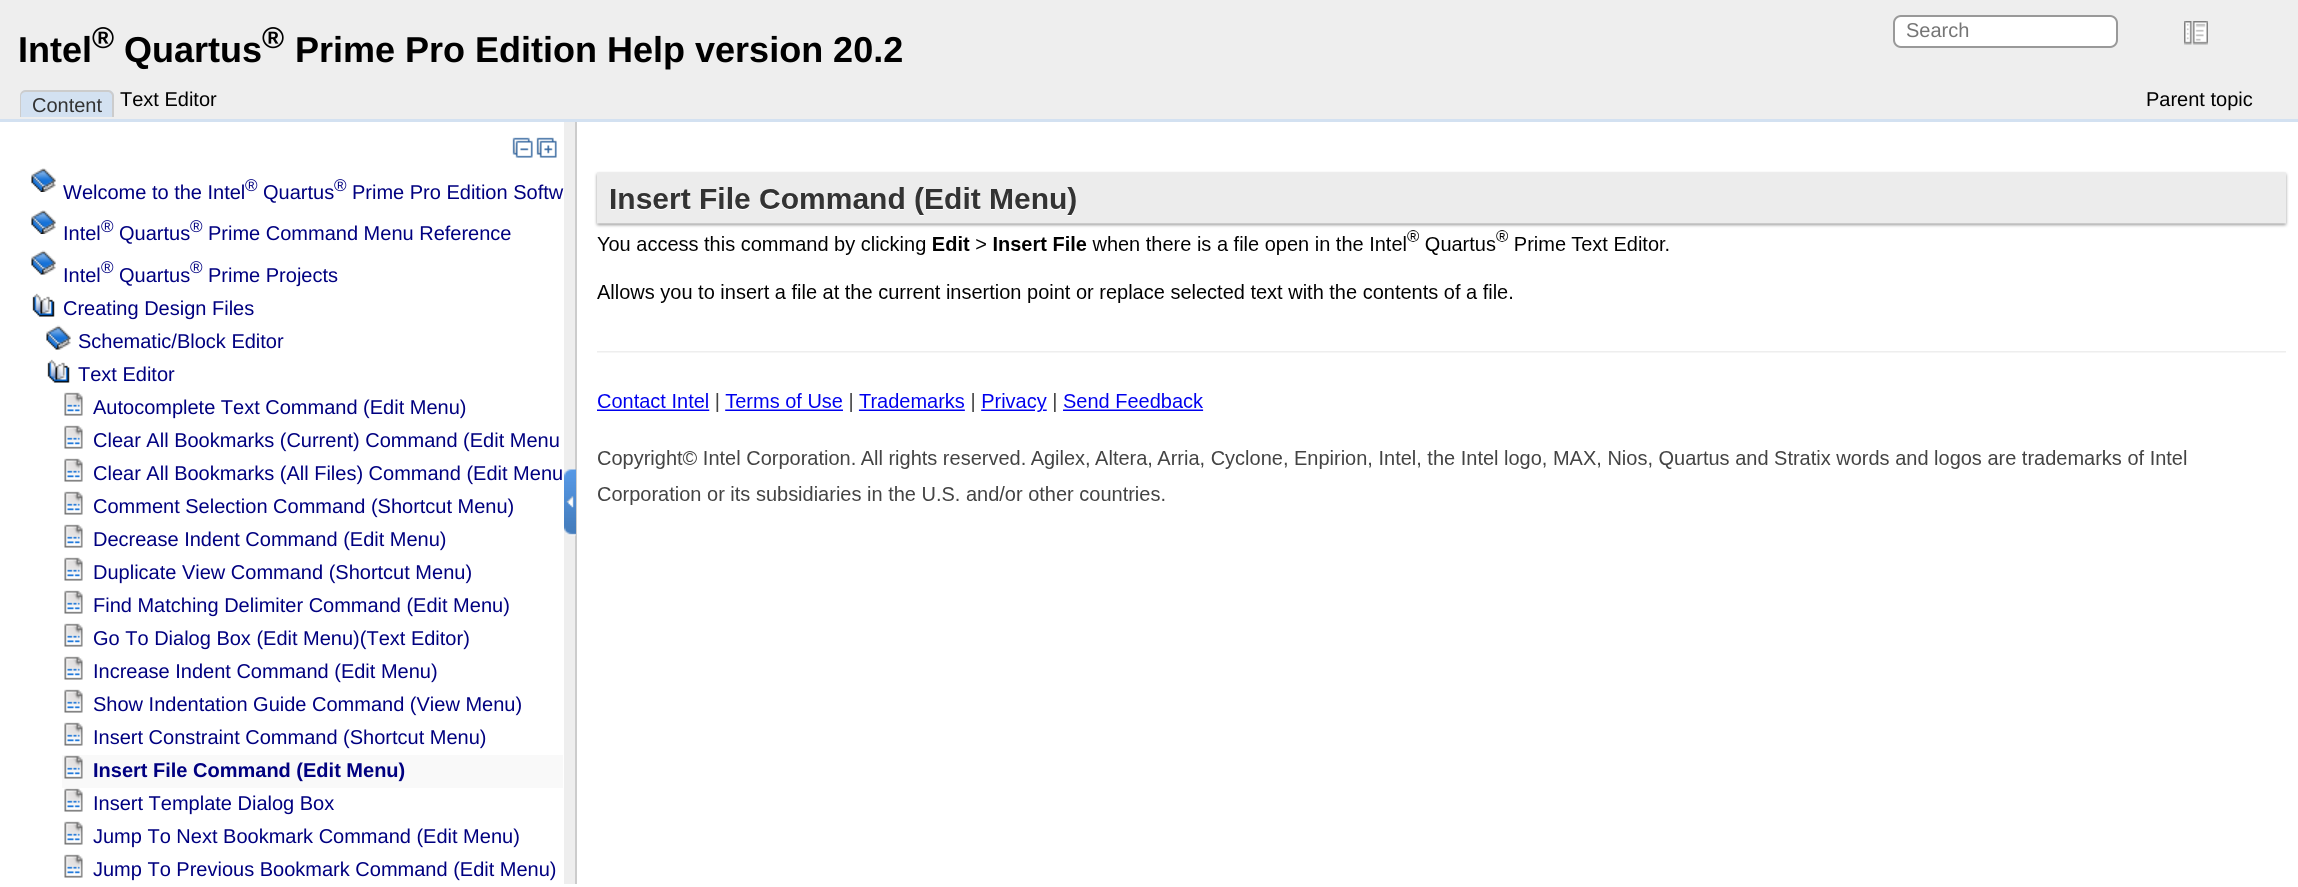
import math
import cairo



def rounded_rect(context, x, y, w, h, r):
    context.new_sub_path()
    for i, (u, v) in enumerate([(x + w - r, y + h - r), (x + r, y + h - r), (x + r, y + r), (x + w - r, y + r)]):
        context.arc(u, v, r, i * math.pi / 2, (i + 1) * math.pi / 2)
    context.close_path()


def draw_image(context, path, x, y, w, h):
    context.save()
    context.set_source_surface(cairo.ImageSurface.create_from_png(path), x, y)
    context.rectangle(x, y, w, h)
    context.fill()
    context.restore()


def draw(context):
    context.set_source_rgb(1, 1, 1)
    context.paint()
    context.set_source_rgb(238 / 255, 238 / 255, 238 / 255)
    context.rectangle(0, 0, 2298, 119)
    context.fill()
    context.set_source_rgb(1, 1, 1)
    rounded_rect(context, 1894, 16, 223, 31, 7)
    context.fill_preserve()
    context.set_source_rgb(153 / 255, 153 / 255, 153 / 255)
    context.stroke()
    draw_image(context, "images/1.png", 2184, 21, 24, 24)
    context.set_source_rgb(211 / 255, 225 / 255, 241 / 255)
    context.new_path()
    context.move_to(26, 90)
    context.line_to(108, 90)
    context.curve_to(111.5, 90, 114, 92.5, 114, 96)
    context.line_to(114, 117)
    context.line_to(20, 117)
    context.line_to(20, 96)
    context.curve_to(20, 92.5, 22.5, 90, 26, 90)
    context.close_path()
    context.fill()
    context.set_source_rgb(204 / 255, 204 / 255, 204 / 255)
    context.set_fill_rule(cairo.FillRule.EVEN_ODD)
    context.new_path()
    context.move_to(26, 90)
    context.line_to(108, 90)
    context.curve_to(111, 90, 114, 93, 114, 96)
    context.line_to(114, 117)
    context.line_to(20, 117)
    context.line_to(20, 96)
    context.curve_to(20, 93, 22, 90, 26, 90)
    context.close_path()
    context.move_to(26, 92)
    context.line_to(108, 92)
    context.curve_to(110, 92, 112, 94, 112, 96)
    context.line_to(112, 117)
    context.line_to(21, 117)
    context.line_to(21, 96)
    context.curve_to(21, 94, 23, 92, 26, 92)
    context.close_path()
    context.fill()
    context.set_source_rgb(211 / 255, 225 / 255, 241 / 255)
    context.rectangle(0, 119, 2298, 3)
    context.fill()
    draw_image(context, "images/2.png", 512, 137, 21, 21)
    draw_image(context, "images/3.png", 536, 137, 21, 21)
    draw_image(context, "images/4.png", 31, 168, 25, 24)
    draw_image(context, "images/4.png", 31, 210, 25, 24)
    draw_image(context, "images/5.png", 31, 250, 25, 25)
    draw_image(context, "images/6.png", 32, 293, 23, 24)
    draw_image(context, "images/5.png", 46, 325, 25, 25)
    draw_image(context, "images/6.png", 47, 359, 23, 24)
    draw_image(context, "images/7.png", 64, 392, 19, 24)
    draw_image(context, "images/7.png", 64, 425, 19, 24)
    draw_image(context, "images/7.png", 64, 458, 19, 24)
    draw_image(context, "images/7.png", 64, 491, 19, 24)
    draw_image(context, "images/7.png", 64, 524, 19, 24)
    draw_image(context, "images/7.png", 64, 557, 19, 24)
    draw_image(context, "images/7.png", 64, 590, 19, 24)
    draw_image(context, "images/7.png", 64, 623, 19, 24)
    draw_image(context, "images/7.png", 64, 656, 19, 24)
    draw_image(context, "images/7.png", 64, 689, 19, 24)
    draw_image(context, "images/7.png", 64, 722, 19, 24)
    context.set_source_rgb(249 / 255, 249 / 255, 249 / 255)
    context.rectangle(62, 755, 501, 33)
    context.fill()
    draw_image(context, "images/8.png", 64, 755, 19, 24)
    draw_image(context, "images/7.png", 64, 788, 19, 24)
    draw_image(context, "images/7.png", 64, 821, 19, 24)
    draw_image(context, "images/7.png", 64, 854, 19, 24)
    context.set_source_rgb(238 / 255, 238 / 255, 238 / 255)
    context.rectangle(564, 122, 11, 762)
    context.fill()
    context.set_source_rgb(204 / 255, 204 / 255, 204 / 255)
    context.rectangle(575, 122, 2, 762)
    context.fill()
    draw_image(context, "images/9.png", 564, 469, 12, 67)
    draw_image(context, "images/10.png", 594, 171, 1695, 334)
    context.select_font_face("Liberation Sans", cairo.FontSlant.NORMAL, cairo.FontWeight.BOLD)
    context.set_font_size(36)
    context.set_source_rgb(0, 0, 0)
    context.move_to(18, 62)
    context.show_text("Intel")
    context.set_font_size(30)
    context.move_to(92, 48)
    context.show_text("®")
    context.set_font_size(36)
    context.move_to(124, 62)
    context.show_text("Quartus")
    context.set_font_size(30)
    context.move_to(262, 48)
    context.show_text("®")
    context.set_font_size(36)
    context.move_to(295, 62)
    context.show_text("Prime Pro Edition Help version 20.2")
    context.select_font_face("Liberation Sans")
    context.set_font_size(20)
    context.set_source_rgb(117 / 255, 117 / 255, 117 / 255)
    context.move_to(1906, 37)
    context.show_text("Search")
    context.set_source_rgb(51 / 255, 51 / 255, 51 / 255)
    context.move_to(32, 112)
    context.show_text("Content")
    context.set_source_rgb(0, 0, 0)
    context.move_to(120, 106)
    context.show_text("Text Editor")
    context.move_to(2146, 106)
    context.show_text("Parent topic")
    context.set_source_rgb(0, 0, 128 / 255)
    context.move_to(63, 199)
    context.show_text("Welcome to the Intel")
    context.set_font_size(17)
    context.move_to(245, 191)
    context.show_text("®")
    context.set_font_size(20)
    context.move_to(263, 199)
    context.show_text("Quartus")
    context.set_font_size(17)
    context.move_to(334, 191)
    context.show_text("®")
    context.set_font_size(20)
    context.move_to(352, 199)
    context.show_text("Prime Pro Edition Softw")
    context.move_to(63, 240)
    context.show_text("Intel")
    context.set_font_size(17)
    context.move_to(101, 232)
    context.show_text("®")
    context.set_font_size(20)
    context.move_to(119, 240)
    context.show_text("Quartus")
    context.set_font_size(17)
    context.move_to(190, 232)
    context.show_text("®")
    context.set_font_size(20)
    context.move_to(208, 240)
    context.show_text("Prime Command Menu Reference")
    context.move_to(63, 282)
    context.show_text("Intel")
    context.set_font_size(17)
    context.move_to(101, 273)
    context.show_text("®")
    context.set_font_size(20)
    context.move_to(119, 282)
    context.show_text("Quartus")
    context.set_font_size(17)
    context.move_to(190, 273)
    context.show_text("®")
    context.set_font_size(20)
    context.move_to(208, 282)
    context.show_text("Prime Projects")
    context.move_to(63, 315)
    context.show_text("Creating Design Files")
    context.move_to(78, 348)
    context.show_text("Schematic/Block Editor")
    context.move_to(78, 381)
    context.show_text("Text Editor")
    context.move_to(93, 414)
    context.show_text("Autocomplete Text Command (Edit Menu)")
    context.move_to(93, 447)
    context.show_text("Clear All Bookmarks (Current) Command (Edit Menu")
    context.move_to(93, 480)
    context.show_text("Clear All Bookmarks (All Files) Command (Edit Menu")
    context.move_to(93, 513)
    context.show_text("Comment Selection Command (Shortcut Menu)")
    context.move_to(93, 546)
    context.show_text("Decrease Indent Command (Edit Menu)")
    context.move_to(93, 579)
    context.show_text("Duplicate View Command (Shortcut Menu)")
    context.move_to(93, 612)
    context.show_text("Find Matching Delimiter Command (Edit Menu)")
    context.move_to(93, 645)
    context.show_text("Go To Dialog Box (Edit Menu)(Text Editor)")
    context.move_to(93, 678)
    context.show_text("Increase Indent Command (Edit Menu)")
    context.move_to(93, 711)
    context.show_text("Show Indentation Guide Command (View Menu)")
    context.move_to(93, 744)
    context.show_text("Insert Constraint Command (Shortcut Menu)")
    context.select_font_face("Liberation Sans", cairo.FontSlant.NORMAL, cairo.FontWeight.BOLD)
    context.move_to(93, 777)
    context.show_text("Insert File Command (Edit Menu)")
    context.select_font_face("Liberation Sans")
    context.move_to(93, 810)
    context.show_text("Insert Template Dialog Box")
    context.move_to(93, 843)
    context.show_text("Jump To Next Bookmark Command (Edit Menu)")
    context.move_to(93, 876)
    context.show_text("Jump To Previous Bookmark Command (Edit Menu)")


surface = cairo.ImageSurface(cairo.Format.RGB24, 2298, 887)
context = cairo.Context(surface)
options = cairo.FontOptions()
options.set_hint_metrics(cairo.HintMetrics.OFF)
options.set_hint_style(cairo.HintStyle.NONE)
context.set_font_options(options)
context.set_miter_limit(4)
draw(context)
surface.write_to_png("out.png")
